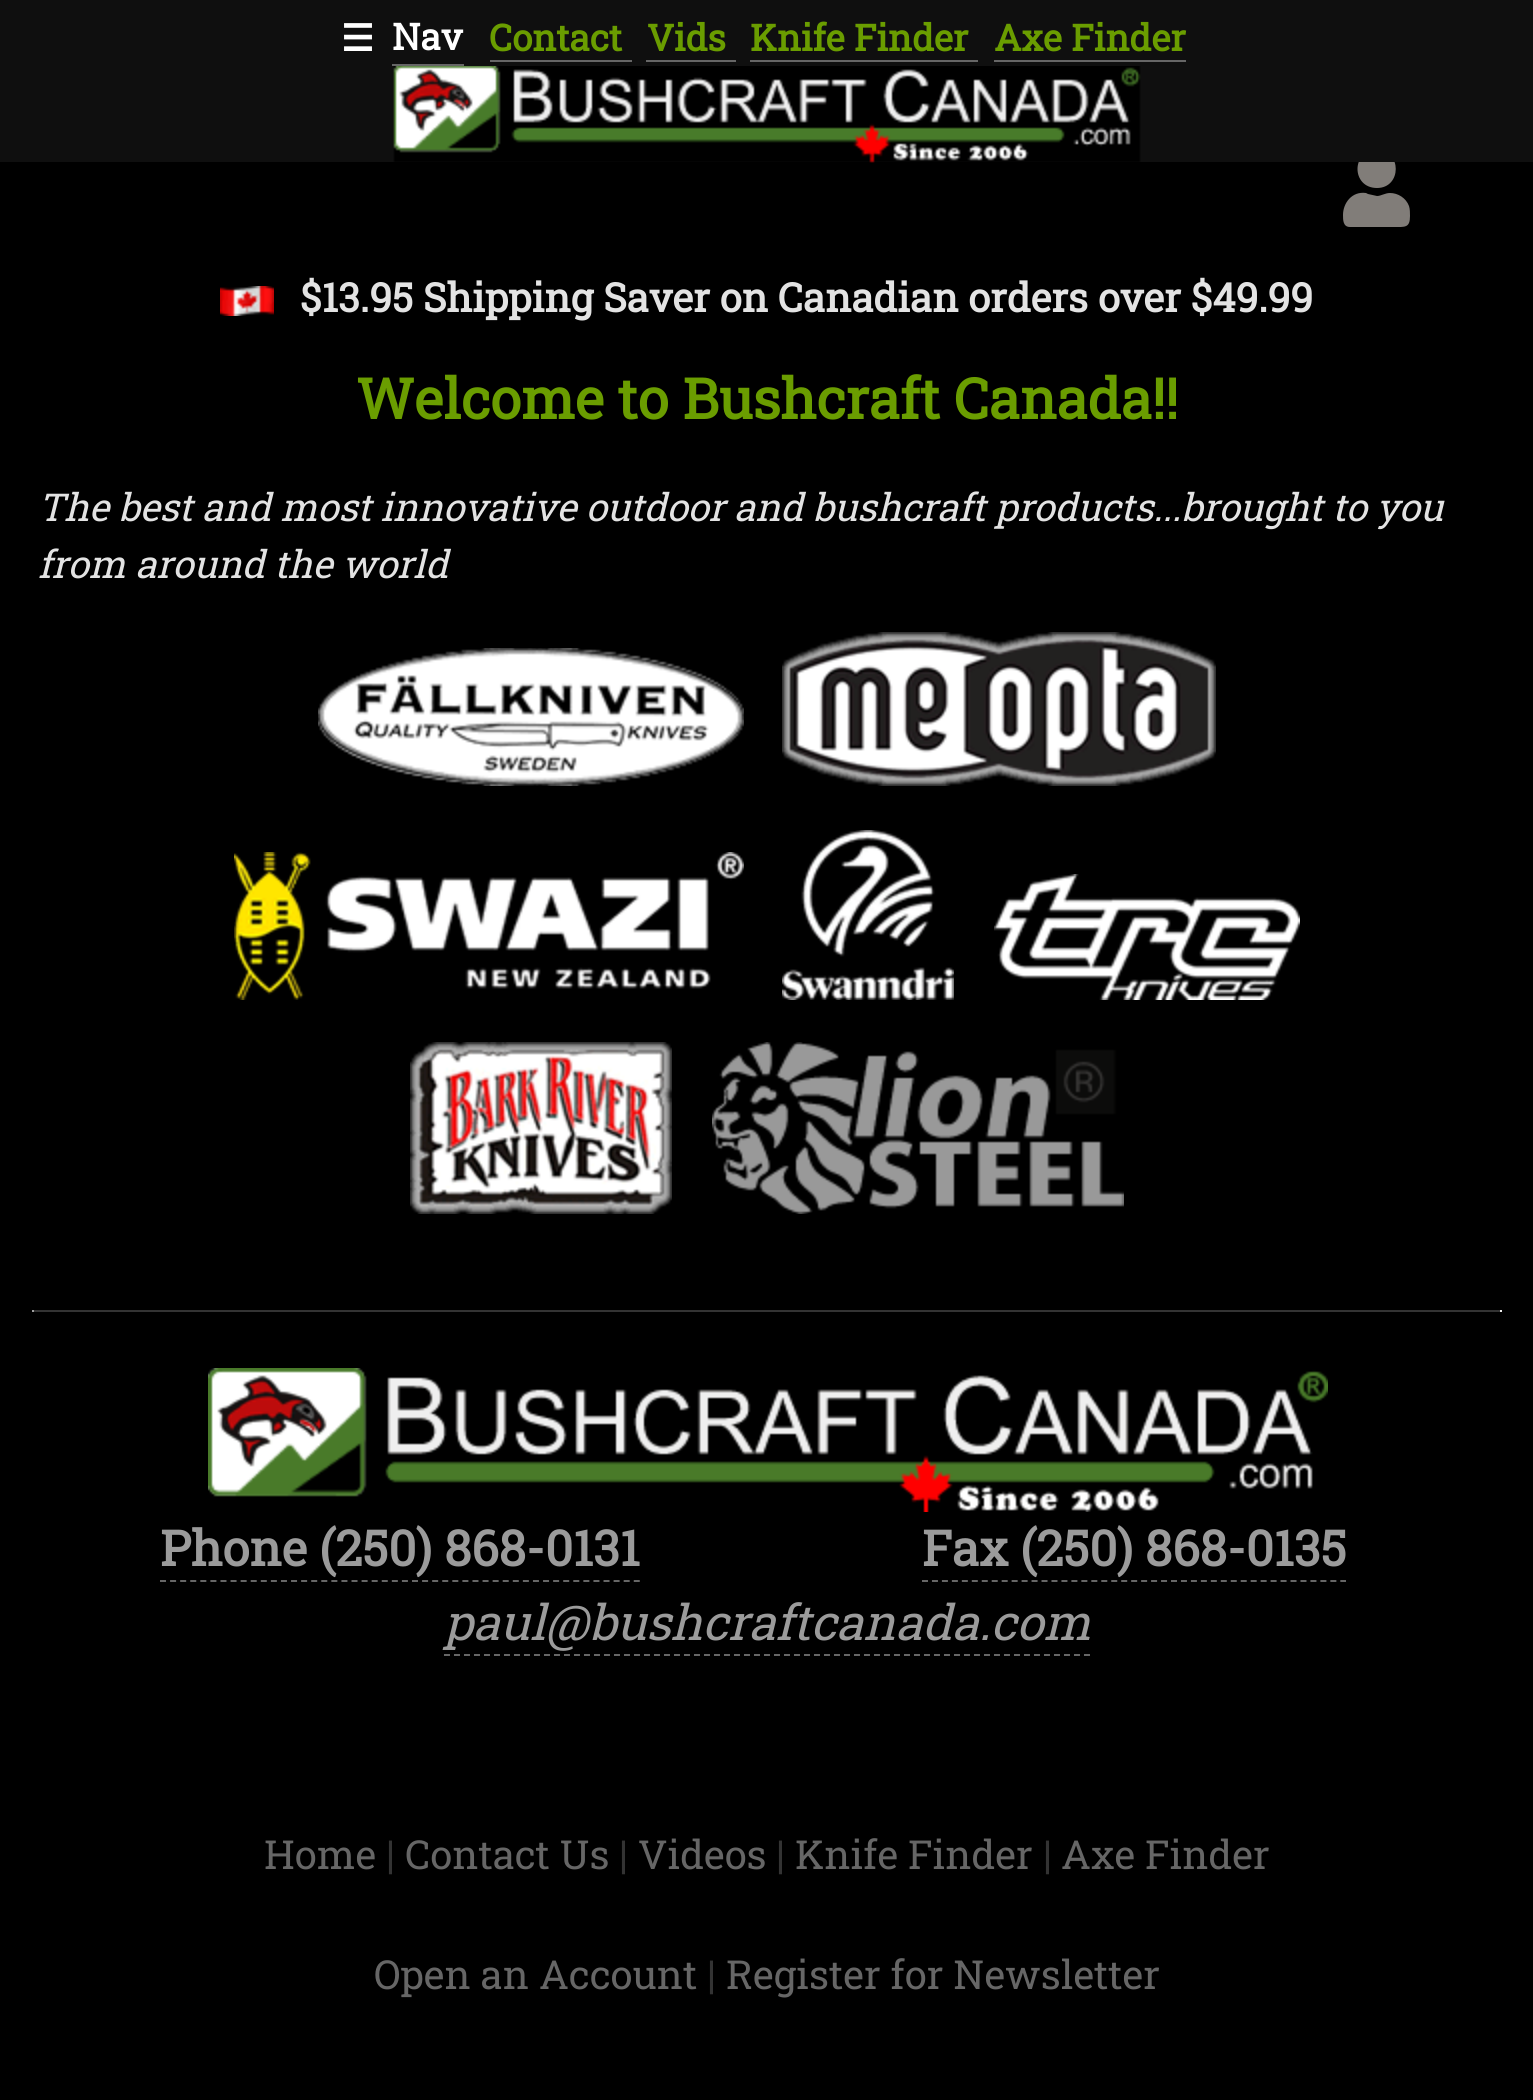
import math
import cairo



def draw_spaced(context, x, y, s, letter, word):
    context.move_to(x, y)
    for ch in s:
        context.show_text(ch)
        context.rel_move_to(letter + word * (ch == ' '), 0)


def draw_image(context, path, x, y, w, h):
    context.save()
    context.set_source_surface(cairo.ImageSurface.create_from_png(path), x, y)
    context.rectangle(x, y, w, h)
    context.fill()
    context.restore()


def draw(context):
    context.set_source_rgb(0, 0, 0)
    context.paint()
    context.set_source_rgb(129 / 255, 125 / 255, 121 / 255)
    context.new_path()
    context.move_to(1377, 188)
    context.curve_to(1402, 188, 1402, 150, 1377, 150)
    context.curve_to(1351, 150, 1351, 188, 1377, 188)
    context.close_path()
    context.move_to(1390, 193)
    context.curve_to(1385, 193, 1381, 196, 1377, 196)
    context.line_to(1368, 194)
    context.line_to(1366, 193)
    context.curve_to(1352, 191, 1343, 203, 1343, 215)
    context.curve_to(1343, 220, 1343, 227, 1350, 227)
    context.line_to(1394, 227)
    context.curve_to(1405, 227, 1410, 228, 1410, 216)
    context.curve_to(1410, 213, 1410, 209, 1409, 206)
    context.curve_to(1406, 198, 1398, 193, 1390, 193)
    context.close_path()
    context.fill()
    context.set_source_rgb(15 / 255, 15 / 255, 15 / 255)
    context.rectangle(0, 0, 1533, 162)
    context.fill()
    context.set_source_rgb(102 / 255, 102 / 255, 102 / 255)
    context.rectangle(392, 64, 72, 2)
    context.fill()
    context.rectangle(490, 60, 142, 2)
    context.fill()
    context.rectangle(646, 60, 90, 2)
    context.fill()
    context.rectangle(750, 60, 228, 2)
    context.fill()
    context.rectangle(994, 60, 192, 2)
    context.fill()
    draw_image(context, "images/1.png", 393, 66, 748, 97)
    draw_image(context, "images/2.png", 220, 286, 54, 30)
    draw_image(context, "images/3.png", 318, 648, 426, 138)
    draw_image(context, "images/4.png", 782, 632, 434, 154)
    draw_image(context, "images/5.png", 234, 852, 510, 148)
    draw_image(context, "images/6.png", 782, 830, 172, 170)
    draw_image(context, "images/7.png", 994, 874, 306, 126)
    draw_image(context, "images/8.png", 410, 1042, 262, 172)
    draw_image(context, "images/9.png", 712, 1042, 412, 172)
    context.set_source_rgb(51 / 255, 51 / 255, 51 / 255)
    context.rectangle(32, 1310, 1470, 2)
    context.fill()
    context.set_source_rgb(238 / 255, 238 / 255, 238 / 255)
    context.rectangle(1500, 1310, 2, 2)
    context.fill()
    context.set_source_rgb(159 / 255, 159 / 255, 159 / 255)
    context.rectangle(32, 1310, 2, 2)
    context.fill()
    draw_image(context, "images/10.png", 208, 1368, 1120, 144)
    context.new_path()
    context.move_to(160, 1581)
    context.line_to(640, 1581)
    context.set_source_rgb(102 / 255, 102 / 255, 102 / 255)
    context.set_dash([6, 4.08])
    context.stroke()
    context.new_path()
    context.move_to(922, 1581)
    context.line_to(1346, 1581)
    context.set_dash([6, 3.96])
    context.stroke()
    context.new_path()
    context.move_to(444, 1655)
    context.line_to(1090, 1655)
    context.set_dash([6, 4])
    context.stroke()
    context.select_font_face("DejaVu Sans", cairo.FontSlant.NORMAL, cairo.FontWeight.BOLD)
    context.set_font_size(36.75)
    context.set_source_rgb(1, 1, 1)
    context.move_to(341, 51)
    context.show_text("☰")
    context.select_font_face("Roboto Slab", cairo.FontSlant.NORMAL, cairo.FontWeight.BOLD)
    context.move_to(392, 50)
    context.show_text("Nav")
    context.set_source_rgb(106 / 255, 157 / 255, 0)
    context.move_to(489, 51)
    context.show_text("Contact")
    context.move_to(647, 51)
    context.show_text("Vids")
    context.move_to(750, 51)
    context.show_text("Knife Finder")
    context.move_to(994, 51)
    context.show_text("Axe Finder")
    context.set_font_size(40)
    context.set_source_rgb(227 / 255, 227 / 255, 227 / 255)
    context.move_to(300, 312)
    context.show_text("$13.95 Shipping Saver on Canadian orders over $49.99")
    context.set_font_size(56)
    context.set_source_rgb(106 / 255, 157 / 255, 0)
    context.move_to(356, 419)
    context.show_text("Welcome to Bushcraft Canada!!")
    context.select_font_face("Roboto Slab", cairo.FontSlant.ITALIC)
    context.set_font_size(38.35)
    context.set_source_rgb(227 / 255, 227 / 255, 227 / 255)
    draw_spaced(context, 38, 521, "The best and most innovative outdoor and bushcraft products...brought to you", 0, -0.1)
    context.move_to(38, 578)
    context.show_text("from around the world")
    context.select_font_face("Roboto Slab", cairo.FontSlant.NORMAL, cairo.FontWeight.BOLD)
    context.set_font_size(49.1)
    context.set_source_rgb(155 / 255, 155 / 255, 155 / 255)
    context.move_to(160, 1566)
    context.show_text("Phone (250) 868-0131")
    context.move_to(922, 1566)
    context.show_text("Fax (250) 868-0135")
    context.select_font_face("Roboto Slab", cairo.FontSlant.ITALIC)
    context.move_to(444, 1640)
    context.show_text("paul@bushcraftcanada.com")
    context.select_font_face("Roboto Slab")
    context.set_font_size(40)
    context.set_source_rgb(102 / 255, 102 / 255, 102 / 255)
    context.move_to(264, 1869)
    context.show_text("Home")
    context.set_source_rgb(51 / 255, 51 / 255, 51 / 255)
    context.move_to(386, 1869)
    context.show_text("|")
    context.set_source_rgb(102 / 255, 102 / 255, 102 / 255)
    context.move_to(405, 1869)
    context.show_text("Contact Us")
    context.set_source_rgb(51 / 255, 51 / 255, 51 / 255)
    context.move_to(619, 1869)
    context.show_text("|")
    context.set_source_rgb(102 / 255, 102 / 255, 102 / 255)
    context.move_to(638, 1869)
    context.show_text("Videos")
    context.set_source_rgb(51 / 255, 51 / 255, 51 / 255)
    context.move_to(776, 1869)
    context.show_text("|")
    context.set_source_rgb(102 / 255, 102 / 255, 102 / 255)
    context.move_to(795, 1869)
    context.show_text("Knife Finder")
    context.set_source_rgb(51 / 255, 51 / 255, 51 / 255)
    context.move_to(1043, 1869)
    context.show_text("|")
    context.set_source_rgb(102 / 255, 102 / 255, 102 / 255)
    context.move_to(1061, 1869)
    context.show_text("Axe Finder")
    context.move_to(374, 1989)
    context.show_text("Open an Account")
    context.set_source_rgb(51 / 255, 51 / 255, 51 / 255)
    context.move_to(707, 1989)
    context.show_text("|")
    context.set_source_rgb(102 / 255, 102 / 255, 102 / 255)
    context.move_to(726, 1989)
    context.show_text("Register for Newsletter")


surface = cairo.ImageSurface(cairo.Format.RGB24, 1533, 2100)
context = cairo.Context(surface)
options = cairo.FontOptions()
options.set_hint_metrics(cairo.HintMetrics.OFF)
options.set_hint_style(cairo.HintStyle.NONE)
context.set_font_options(options)
context.set_miter_limit(4)
draw(context)
surface.write_to_png("out.png")
